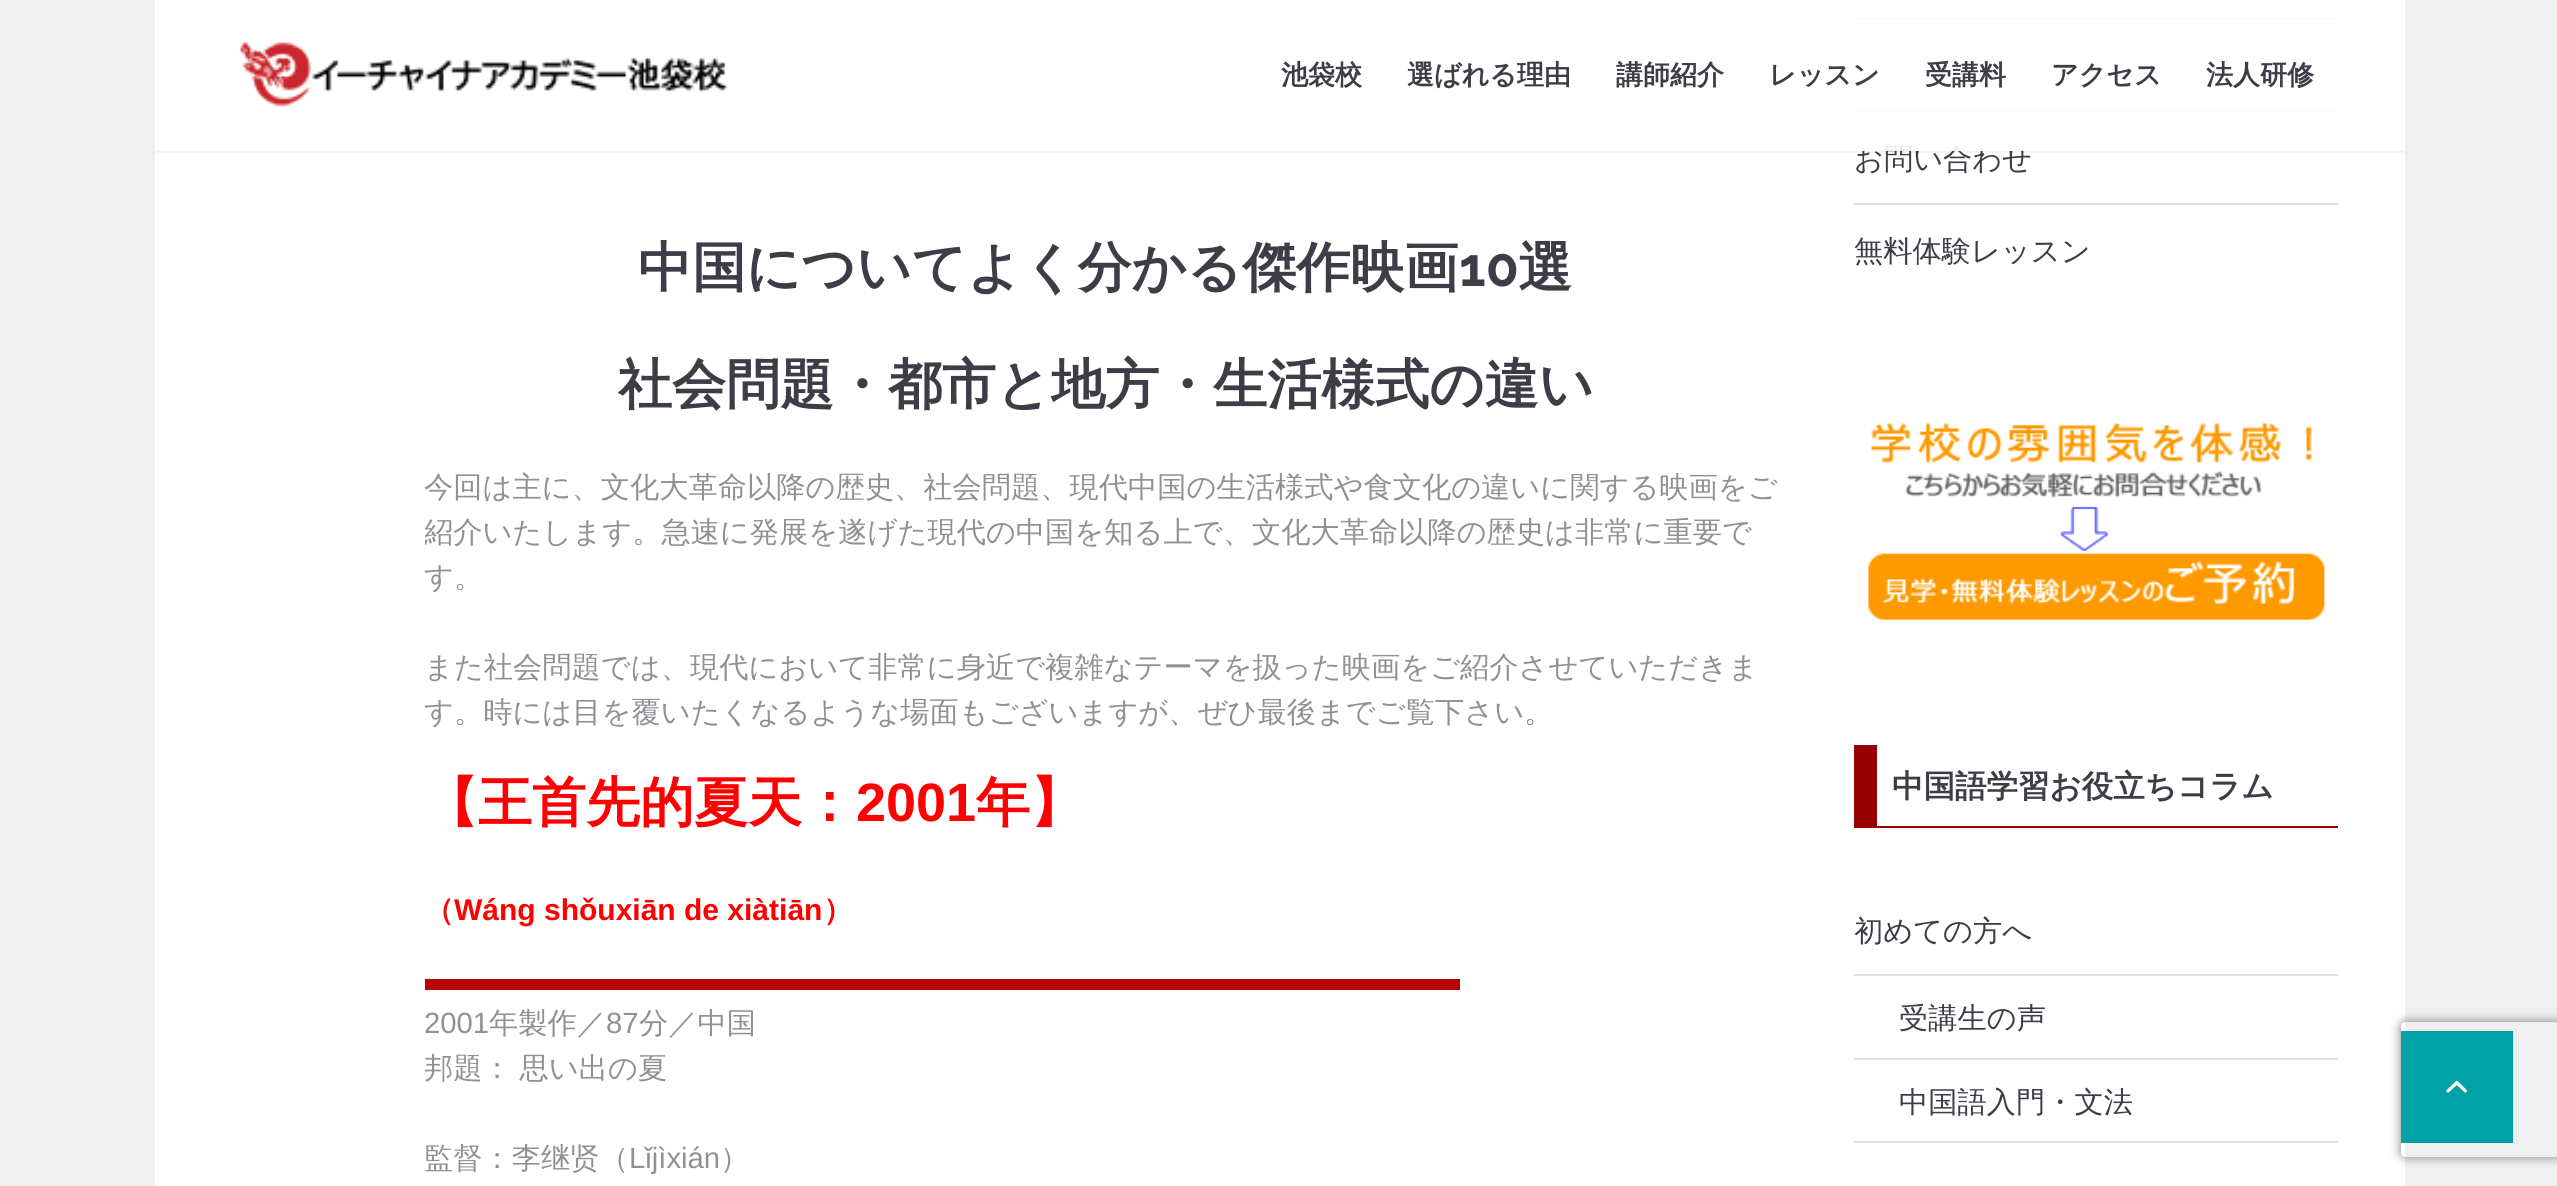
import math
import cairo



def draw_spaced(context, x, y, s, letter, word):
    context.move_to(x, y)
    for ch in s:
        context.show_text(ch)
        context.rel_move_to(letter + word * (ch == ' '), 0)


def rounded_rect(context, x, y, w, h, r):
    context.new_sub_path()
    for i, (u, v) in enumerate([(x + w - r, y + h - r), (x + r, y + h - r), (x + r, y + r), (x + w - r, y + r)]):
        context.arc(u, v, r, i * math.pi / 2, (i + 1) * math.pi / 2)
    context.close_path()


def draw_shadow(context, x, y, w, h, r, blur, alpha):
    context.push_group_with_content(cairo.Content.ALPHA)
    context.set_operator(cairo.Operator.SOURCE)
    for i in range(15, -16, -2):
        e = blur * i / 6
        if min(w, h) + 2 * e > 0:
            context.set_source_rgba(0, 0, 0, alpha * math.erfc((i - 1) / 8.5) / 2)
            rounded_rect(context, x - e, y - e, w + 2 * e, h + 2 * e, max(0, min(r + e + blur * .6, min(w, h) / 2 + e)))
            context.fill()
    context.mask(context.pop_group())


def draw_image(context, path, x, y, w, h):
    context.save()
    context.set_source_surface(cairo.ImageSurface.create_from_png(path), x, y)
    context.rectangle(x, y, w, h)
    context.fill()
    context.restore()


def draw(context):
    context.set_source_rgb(240 / 255, 240 / 255, 240 / 255)
    context.paint()
    context.set_source_rgb(1, 1, 1)
    context.rectangle(155, 0, 2250, 1186)
    context.fill()
    context.set_source_rgb(224 / 255, 224 / 255, 224 / 255)
    context.rectangle(1854, 18, 484, 2)
    context.fill()
    context.rectangle(1854, 110, 484, 2)
    context.fill()
    context.save()
    context.rectangle(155, 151, 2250, 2)
    context.clip()
    context.set_source_rgb(0, 0, 0)
    draw_shadow(context, 155, 2, 2250, 151, 0, 1, 0.05)
    context.restore()
    context.set_source_rgb(182 / 255, 4 / 255, 4 / 255)
    context.rectangle(425, 979, 1035, 11)
    context.fill()
    context.set_source_rgb(224 / 255, 224 / 255, 224 / 255)
    context.rectangle(1854, 203, 484, 2)
    context.fill()
    draw_image(context, "images/2.png", 1868, 423, 457, 197)
    context.set_source_rgb(153 / 255, 0, 0)
    context.rectangle(1877, 826, 461, 2)
    context.fill()
    context.rectangle(1854, 745, 23, 83)
    context.fill()
    context.set_source_rgb(224 / 255, 224 / 255, 224 / 255)
    context.rectangle(1854, 974, 484, 2)
    context.fill()
    context.rectangle(1854, 1058, 484, 2)
    context.fill()
    context.rectangle(1854, 1141, 484, 2)
    context.fill()
    context.save()
    context.set_fill_rule(cairo.FillRule.EVEN_ODD)
    context.new_path()
    context.move_to(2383, 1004)
    context.line_to(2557, 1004)
    context.line_to(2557, 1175)
    context.line_to(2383, 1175)
    context.close_path()
    context.move_to(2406, 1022)
    context.line_to(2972, 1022)
    context.curve_to(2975, 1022, 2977, 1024, 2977, 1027)
    context.line_to(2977, 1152)
    context.curve_to(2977, 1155, 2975, 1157, 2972, 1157)
    context.line_to(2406, 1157)
    context.curve_to(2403, 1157, 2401, 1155, 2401, 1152)
    context.line_to(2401, 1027)
    context.curve_to(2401, 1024, 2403, 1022, 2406, 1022)
    context.close_path()
    context.clip()
    context.set_source_rgb(128 / 255, 128 / 255, 128 / 255)
    draw_shadow(context, 2401, 1022, 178, 135, 5, 5.5, 1)
    context.restore()
    context.set_source_rgb(1 / 255, 162 / 255, 166 / 255)
    context.rectangle(2401, 1031, 112, 112)
    context.fill()
    draw_image(context, "images/3.png", 2446, 1080, 22, 13)
    context.select_font_face("WenQuanYi Zen Hei", cairo.FontSlant.NORMAL, cairo.FontWeight.BOLD)
    context.set_font_size(54)
    context.set_source_rgb(61 / 255, 61 / 255, 71 / 255)
    context.move_to(638, 286)
    context.show_text("中国についてよく分かる傑作映画")
    context.select_font_face("Raleway", cairo.FontSlant.NORMAL, cairo.FontWeight.BOLD)
    context.move_to(1459, 286)
    context.show_text("10")
    context.select_font_face("WenQuanYi Zen Hei", cairo.FontSlant.NORMAL, cairo.FontWeight.BOLD)
    context.move_to(1518, 286)
    context.show_text("選")
    context.move_to(618, 403)
    context.show_text("社会問題・都市と地方・生活様式の違い")
    context.select_font_face("WenQuanYi Zen Hei Medium")
    context.set_font_size(29.25)
    context.set_source_rgb(144 / 255, 145 / 255, 149 / 255)
    context.move_to(424, 497)
    context.show_text("今回は主に、文化大革命以降の歴史、社会問題、現代中国の生活様式や食文化の違いに関する映画をご")
    context.save()
    context.rectangle(425, 0, 1362, 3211)
    context.clip()
    context.move_to(424, 542)
    context.show_text("紹介いたします。急速に発展を遂げた現代の中国を知る上で、文化大革命以降の歴史は非常に重要で")
    context.restore()
    context.move_to(424, 587)
    context.show_text("す。")
    context.move_to(424, 677)
    context.show_text("また社会問題では、現代において非常に身近で複雑なテーマを扱った映画をご紹介させていただきま")
    context.move_to(424, 722)
    context.show_text("す。時には目を覆いたくなるような場面もございますが、ぜひ最後までご覧下さい。")
    context.select_font_face("WenQuanYi Zen Hei", cairo.FontSlant.NORMAL, cairo.FontWeight.BOLD)
    context.set_font_size(54)
    context.set_source_rgb(1, 0, 0)
    context.move_to(424, 821)
    context.show_text("【王首先的夏天：")
    context.select_font_face("Liberation Sans", cairo.FontSlant.NORMAL, cairo.FontWeight.BOLD)
    context.move_to(856, 821)
    context.show_text("2001")
    context.select_font_face("WenQuanYi Zen Hei", cairo.FontSlant.NORMAL, cairo.FontWeight.BOLD)
    context.move_to(976, 821)
    context.show_text("年】")
    context.set_font_size(30)
    context.move_to(424, 920)
    context.show_text("（")
    context.select_font_face("Liberation Sans", cairo.FontSlant.NORMAL, cairo.FontWeight.BOLD)
    context.move_to(454, 920)
    context.show_text("Wáng shǒuxiān de xiàtiān")
    context.select_font_face("WenQuanYi Zen Hei", cairo.FontSlant.NORMAL, cairo.FontWeight.BOLD)
    context.move_to(823, 920)
    context.show_text("）")
    context.select_font_face("Liberation Sans")
    context.set_font_size(29.25)
    context.set_source_rgb(144 / 255, 145 / 255, 149 / 255)
    context.move_to(424, 1033)
    context.show_text("2001")
    context.select_font_face("WenQuanYi Zen Hei Medium")
    context.move_to(489, 1033)
    context.show_text("年製作／")
    context.select_font_face("Liberation Sans")
    context.move_to(606, 1033)
    context.show_text("87")
    context.select_font_face("WenQuanYi Zen Hei Medium")
    context.move_to(639, 1033)
    context.show_text("分／中国")
    draw_spaced(context, 424, 1078, "邦題： 思い出の夏", 0, -1)
    context.move_to(424, 1168)
    context.show_text("監督：李继贤（")
    context.select_font_face("Liberation Sans")
    context.move_to(629, 1168)
    context.show_text("Lǐjìxián")
    context.select_font_face("WenQuanYi Zen Hei Medium")
    context.move_to(720, 1168)
    context.show_text("）")
    context.set_source_rgb(61 / 255, 61 / 255, 71 / 255)
    context.move_to(1854, 169)
    context.show_text("お問い合わせ")
    context.set_source_rgba(1, 1, 1, 0.9)
    context.rectangle(155, 18, 2249, 133)
    context.fill()
    context.select_font_face("WenQuanYi Zen Hei", cairo.FontSlant.NORMAL, cairo.FontWeight.BOLD)
    context.set_font_size(27)
    context.set_source_rgb(61 / 255, 61 / 255, 71 / 255)
    context.move_to(2206, 84)
    context.show_text("法人研修")
    context.move_to(2051, 84)
    context.show_text("アクセス")
    context.move_to(1925, 84)
    context.show_text("受講料")
    context.move_to(1769, 84)
    context.show_text("レッスン")
    context.move_to(1616, 84)
    context.show_text("講師紹介")
    context.move_to(1407, 84)
    context.show_text("選ばれる理由")
    context.move_to(1281, 84)
    context.show_text("池袋校")
    draw_image(context, "images/1.png", 240, 42, 488, 65)
    context.select_font_face("WenQuanYi Zen Hei Medium")
    context.set_font_size(29.25)
    context.move_to(1854, 261)
    context.show_text("無料体験レッスン")
    context.select_font_face("WenQuanYi Zen Hei", cairo.FontSlant.NORMAL, cairo.FontWeight.BOLD)
    context.set_font_size(31.5)
    context.move_to(1892, 797)
    context.show_text("中国語学習お役立ちコラム")
    context.select_font_face("WenQuanYi Zen Hei Medium")
    context.set_font_size(29.25)
    context.move_to(1854, 941)
    context.show_text("初めての方へ")
    context.move_to(1899, 1028)
    context.show_text("受講生の声")
    context.move_to(1899, 1112)
    context.show_text("中国語入門・文法")


surface = cairo.ImageSurface(cairo.Format.RGB24, 2557, 1186)
context = cairo.Context(surface)
options = cairo.FontOptions()
options.set_hint_metrics(cairo.HintMetrics.OFF)
options.set_hint_style(cairo.HintStyle.NONE)
context.set_font_options(options)
context.set_miter_limit(4)
draw(context)
surface.write_to_png("out.png")
